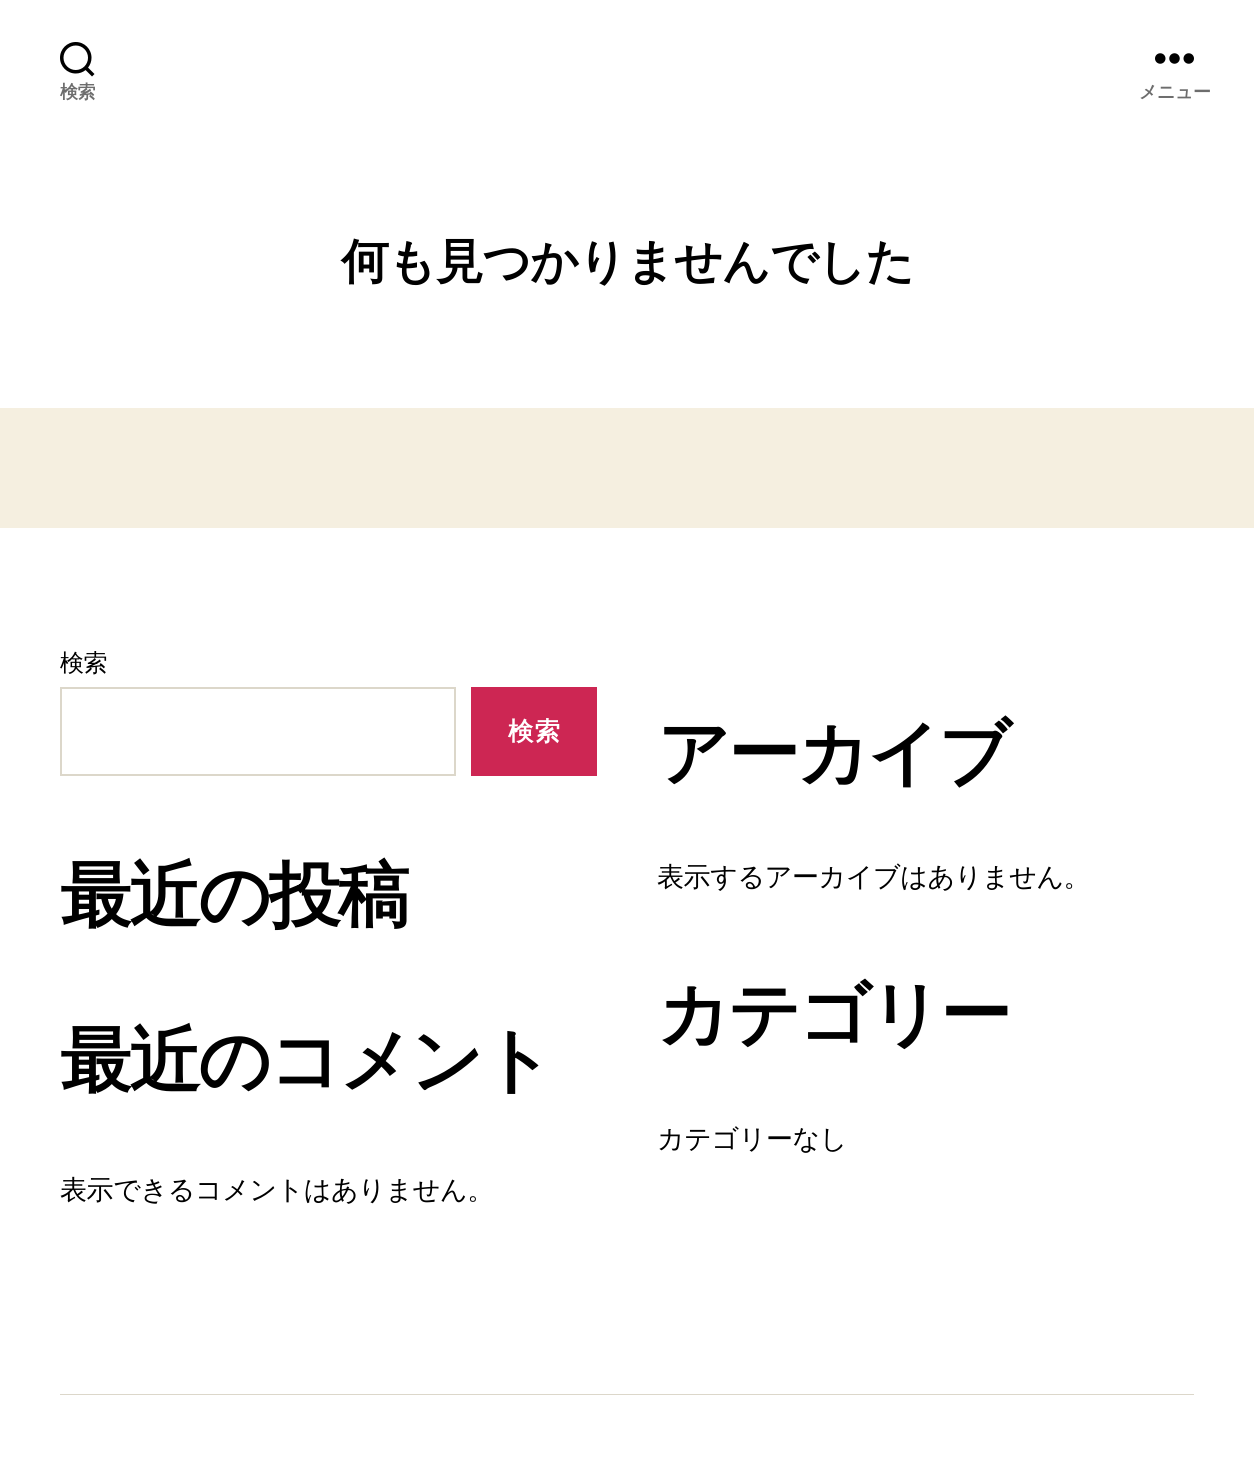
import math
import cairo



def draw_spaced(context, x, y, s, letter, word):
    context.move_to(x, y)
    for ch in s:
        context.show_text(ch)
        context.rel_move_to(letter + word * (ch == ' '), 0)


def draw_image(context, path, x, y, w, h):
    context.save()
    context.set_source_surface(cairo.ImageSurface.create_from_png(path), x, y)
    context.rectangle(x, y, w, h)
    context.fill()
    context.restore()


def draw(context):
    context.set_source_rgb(245 / 255, 239 / 255, 224 / 255)
    context.paint()
    context.set_source_rgb(1, 1, 1)
    context.rectangle(0, 0, 1254, 408)
    context.fill()
    draw_image(context, "images/1.png", 60, 42, 35, 35)
    draw_image(context, "images/2.png", 1155, 53, 39, 11)
    context.rectangle(0, 528, 1254, 937)
    context.fill()
    context.set_source_rgb(220 / 255, 215 / 255, 202 / 255)
    context.rectangle(60, 1394, 1134, 1)
    context.fill()
    context.rectangle(61, 688, 394, 87)
    context.stroke()
    context.set_source_rgb(205 / 255, 38 / 255, 83 / 255)
    context.rectangle(471, 687, 126, 89)
    context.fill()
    context.select_font_face("WenQuanYi Zen Hei", cairo.FontSlant.NORMAL, cairo.FontWeight.BOLD)
    context.set_font_size(18)
    context.set_source_rgb(109 / 255, 109 / 255, 109 / 255)
    draw_spaced(context, 60, 98, "検索", -0.4, 0)
    draw_spaced(context, 1139, 98, "メニュー", -0.4, 0)
    context.set_font_size(48)
    context.set_source_rgb(0, 0, 0)
    draw_spaced(context, 341, 278, "何も見つかりませんでした", -1.25, 0)
    context.select_font_face("WenQuanYi Zen Hei Medium")
    context.set_font_size(24)
    draw_spaced(context, 60, 671, "検索", -0.4, 0)
    context.select_font_face("WenQuanYi Zen Hei", cairo.FontSlant.NORMAL, cairo.FontWeight.BOLD)
    context.set_font_size(25.5)
    context.set_source_rgb(1, 1, 1)
    draw_spaced(context, 508, 740, "検索", 1, 0)
    context.set_font_size(72)
    context.set_source_rgb(0, 0, 0)
    draw_spaced(context, 60, 920, "最近の投稿", -3, 0)
    draw_spaced(context, 60, 1085, "最近のコメント", -3, 0)
    context.select_font_face("WenQuanYi Zen Hei Medium")
    context.set_font_size(27)
    draw_spaced(context, 60, 1199, "表示できるコメントはありません。", -0.4, 0)
    context.select_font_face("WenQuanYi Zen Hei", cairo.FontSlant.NORMAL, cairo.FontWeight.BOLD)
    context.set_font_size(72)
    draw_spaced(context, 657, 778, "アーカイブ", -3, 0)
    context.select_font_face("WenQuanYi Zen Hei Medium")
    context.set_font_size(27)
    draw_spaced(context, 657, 886, "表示するアーカイブはありません。", -0.4, 0)
    context.select_font_face("WenQuanYi Zen Hei", cairo.FontSlant.NORMAL, cairo.FontWeight.BOLD)
    context.set_font_size(72)
    draw_spaced(context, 657, 1039, "カテゴリー", -3, 0)
    context.select_font_face("WenQuanYi Zen Hei Medium")
    context.set_font_size(27)
    draw_spaced(context, 657, 1148, "カテゴリーなし", -0.4, 0)


surface = cairo.ImageSurface(cairo.Format.RGB24, 1254, 1465)
context = cairo.Context(surface)
options = cairo.FontOptions()
options.set_hint_metrics(cairo.HintMetrics.OFF)
options.set_hint_style(cairo.HintStyle.NONE)
context.set_font_options(options)
context.set_miter_limit(4)
draw(context)
surface.write_to_png("out.png")
